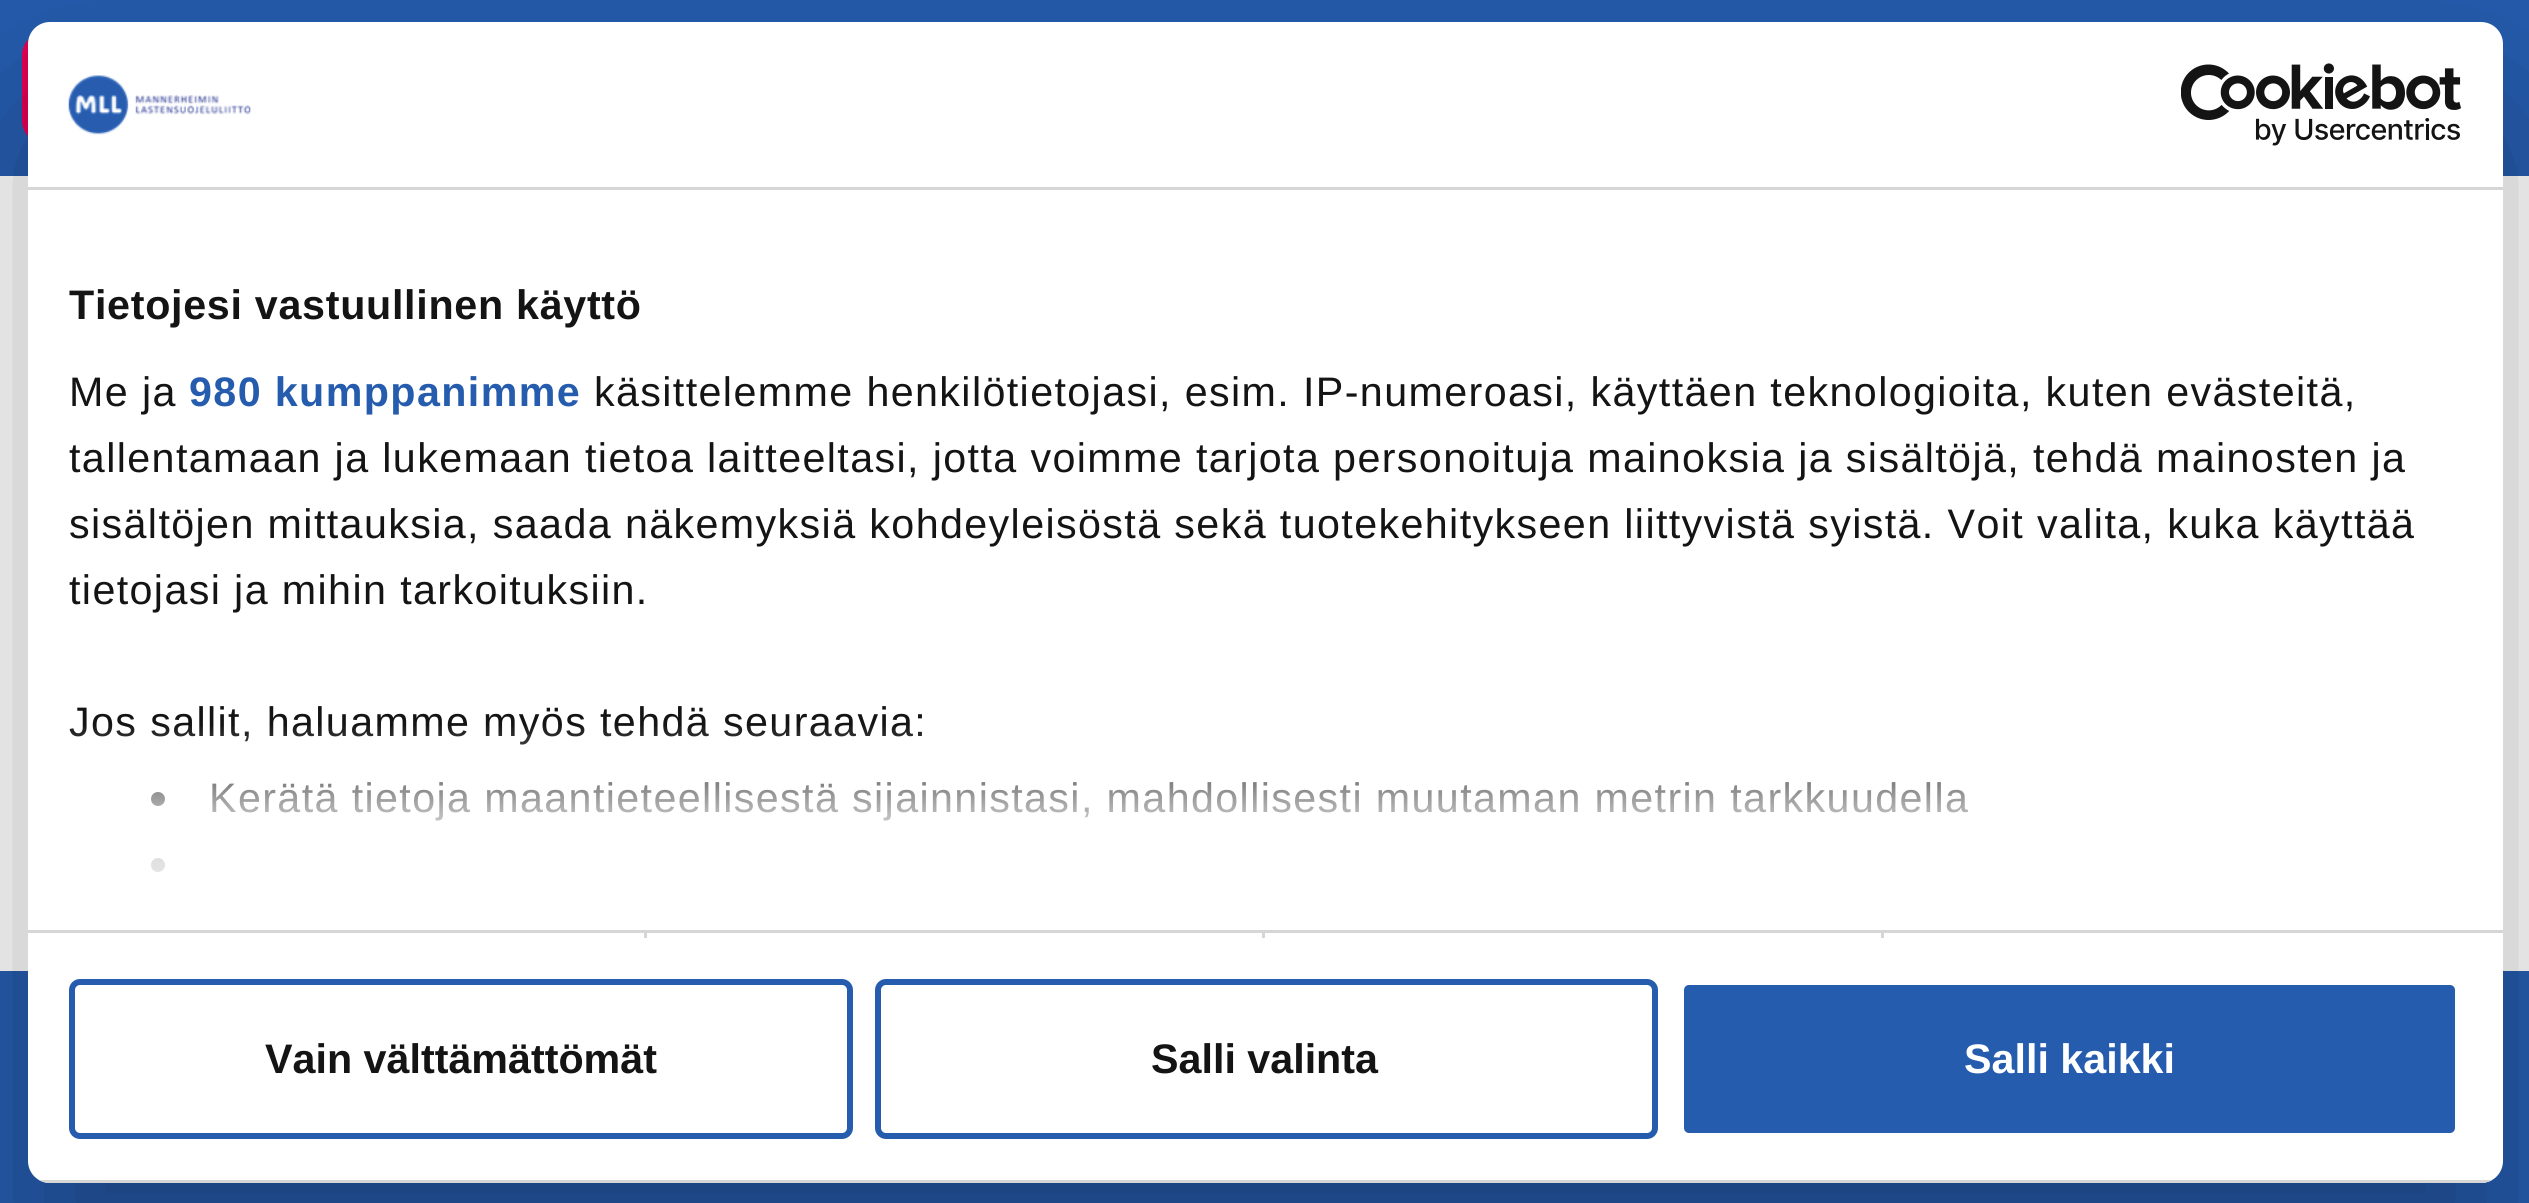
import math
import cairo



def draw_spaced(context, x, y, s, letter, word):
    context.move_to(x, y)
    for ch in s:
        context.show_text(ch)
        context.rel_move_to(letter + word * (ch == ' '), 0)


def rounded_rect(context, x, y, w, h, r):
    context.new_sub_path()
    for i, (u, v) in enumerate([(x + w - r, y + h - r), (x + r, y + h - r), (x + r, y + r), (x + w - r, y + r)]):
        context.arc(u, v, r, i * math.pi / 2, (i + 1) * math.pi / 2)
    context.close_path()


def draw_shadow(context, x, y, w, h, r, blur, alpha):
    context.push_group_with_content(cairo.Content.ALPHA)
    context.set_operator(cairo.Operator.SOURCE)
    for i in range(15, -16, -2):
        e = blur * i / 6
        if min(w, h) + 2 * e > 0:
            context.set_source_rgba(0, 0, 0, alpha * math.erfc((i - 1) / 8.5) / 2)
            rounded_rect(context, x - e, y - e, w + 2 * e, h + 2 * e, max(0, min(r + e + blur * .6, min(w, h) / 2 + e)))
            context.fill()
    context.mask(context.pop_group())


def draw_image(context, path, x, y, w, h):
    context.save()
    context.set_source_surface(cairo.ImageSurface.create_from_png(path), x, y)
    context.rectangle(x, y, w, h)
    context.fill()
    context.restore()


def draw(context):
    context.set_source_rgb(1, 1, 1)
    context.paint()
    context.set_source_rgb(37 / 255, 92 / 255, 174 / 255)
    context.rectangle(0, 0, 2529, 176)
    context.fill()
    context.set_source_rgb(229 / 255, 0, 83 / 255)
    rounded_rect(context, 22, 33, 242, 110, 22)
    context.fill()
    context.set_source_rgb(37 / 255, 92 / 255, 174 / 255)
    context.rectangle(0, 971, 2529, 232)
    context.fill()
    context.set_source_rgb(0, 0, 0)
    draw_shadow(context, 28, 110, 2475, 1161, 22, 93.5, 0.3)
    context.set_source_rgb(1, 1, 1)
    rounded_rect(context, 28, 22, 2475, 1161, 22)
    context.fill()
    context.set_source_rgb(214 / 255, 214 / 255, 214 / 255)
    context.rectangle(28, 187, 2475, 3)
    context.fill()
    draw_image(context, "images/1.png", 68, 75, 183, 60)
    draw_image(context, "images/2.png", 2181, 63, 280, 83)
    context.rectangle(644, 932, 3, 6)
    context.fill()
    context.rectangle(1262, 932, 3, 6)
    context.fill()
    context.rectangle(1881, 932, 3, 6)
    context.fill()
    context.rectangle(28, 930, 2475, 3)
    context.fill()
    context.set_source_rgb(20 / 255, 20 / 255, 20 / 255)
    context.arc(158, 799, 7, 0, 2 * math.pi)
    context.fill()
    context.arc(158, 865, 7, 0, 2 * math.pi)
    context.fill()
    context.save()
    rounded_rect(context, 28, 22, 2475, 1161, 22)
    context.clip()
    context.set_source_rgb(214 / 255, 214 / 255, 214 / 255)
    context.rectangle(39, 1180, 2453, 3)
    context.fill()
    context.restore()
    rounded_rect(context, 72, 982, 778, 154, 8)
    context.set_source_rgb(37 / 255, 92 / 255, 174 / 255)
    context.set_line_width(6)
    context.stroke()
    rounded_rect(context, 878, 982, 777, 154, 8)
    context.stroke()
    rounded_rect(context, 1681, 982, 777, 154, 8)
    context.fill_preserve()
    context.set_source_rgb(1, 1, 1)
    context.stroke()
    context.select_font_face("Liberation Sans", cairo.FontSlant.NORMAL, cairo.FontWeight.BOLD)
    context.set_font_size(41.25)
    context.set_source_rgb(20 / 255, 20 / 255, 20 / 255)
    draw_spaced(context, 69, 319, "Tietojesi vastuullinen käyttö", 0.7, 0)
    context.select_font_face("Liberation Sans")
    draw_spaced(context, 69, 406, "Me ja", 1.38, 0)
    context.select_font_face("Liberation Sans", cairo.FontSlant.NORMAL, cairo.FontWeight.BOLD)
    context.set_source_rgb(37 / 255, 92 / 255, 174 / 255)
    draw_spaced(context, 189, 406, "980 kumppanimme", 1.38, 0)
    context.select_font_face("Liberation Sans")
    context.set_source_rgb(20 / 255, 20 / 255, 20 / 255)
    draw_spaced(context, 594, 406, "käsittelemme henkilötietojasi, esim. IP-numeroasi, käyttäen teknologioita, kuten evästeitä,", 1.38, 0)
    draw_spaced(context, 69, 472, "tallentamaan ja lukemaan tietoa laitteeltasi, jotta voimme tarjota personoituja mainoksia ja sisältöjä, tehdä mainosten ja", 1.38, 0)
    draw_spaced(context, 69, 538, "sisältöjen mittauksia, saada näkemyksiä kohdeyleisöstä sekä tuotekehitykseen liittyvistä syistä. Voit valita, kuka käyttää", 1.38, 0)
    draw_spaced(context, 69, 604, "tietojasi ja mihin tarkoituksiin.", 1.38, 0)
    draw_spaced(context, 69, 736, "Jos sallit, haluamme myös tehdä seuraavia:", 1.38, 0)
    draw_spaced(context, 209, 812, "Kerätä tietoja maantieteellisestä sijainnistasi, mahdollisesti muutaman metrin tarkkuudella", 1.38, 0)
    gradient = cairo.LinearGradient(1247, 930, 1247, 723)
    gradient.add_color_stop_rgba(0, 1, 1, 1, 1)
    gradient.add_color_stop_rgba(0.5, 1, 1, 1, 0.8)
    gradient.add_color_stop_rgba(1, 1, 1, 1, 0)
    context.set_source(gradient)
    context.rectangle(69, 726, 1899, 146)
    context.fill()
    context.select_font_face("Liberation Sans", cairo.FontSlant.NORMAL, cairo.FontWeight.BOLD)
    context.set_source_rgb(20 / 255, 20 / 255, 20 / 255)
    context.move_to(265, 1073)
    context.show_text("Vain välttämättömät")
    context.move_to(1151, 1073)
    context.show_text("Salli valinta")
    context.set_source_rgb(1, 1, 1)
    context.move_to(1964, 1073)
    context.show_text("Salli kaikki")


surface = cairo.ImageSurface(cairo.Format.RGB24, 2529, 1203)
context = cairo.Context(surface)
options = cairo.FontOptions()
options.set_hint_metrics(cairo.HintMetrics.OFF)
options.set_hint_style(cairo.HintStyle.NONE)
context.set_font_options(options)
context.set_miter_limit(4)
draw(context)
surface.write_to_png("out.png")
